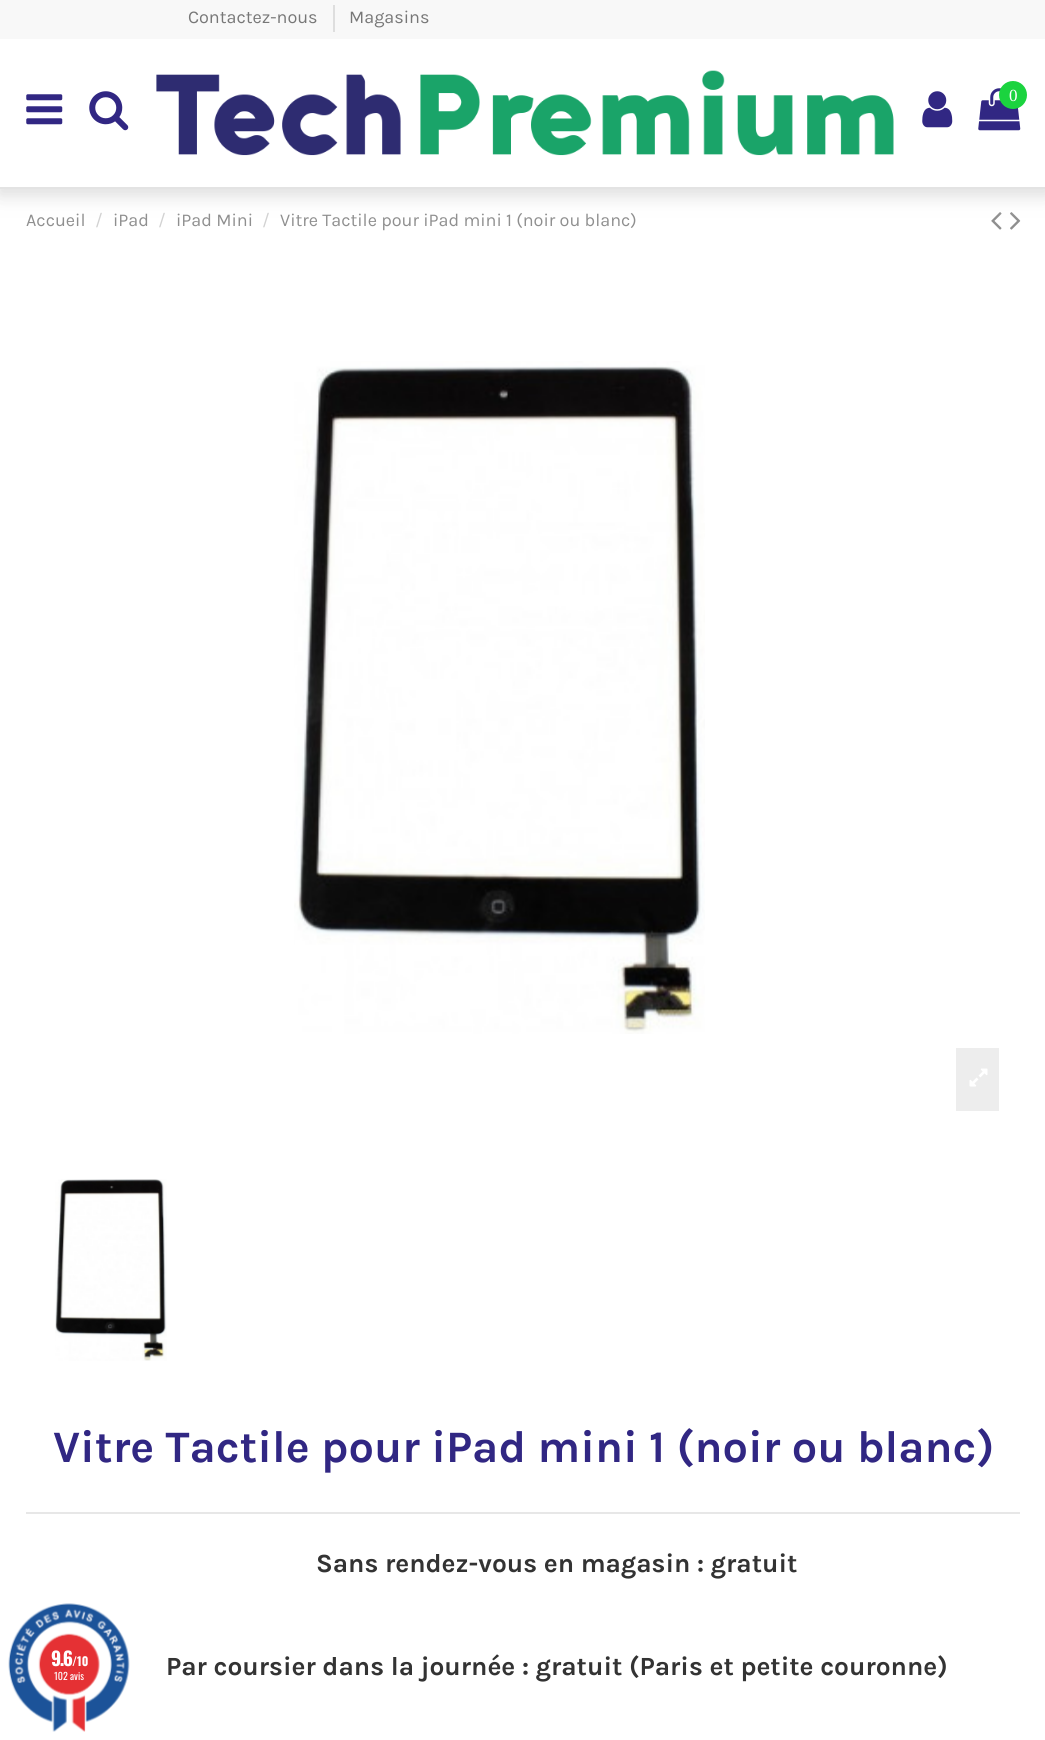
import math
import cairo



def draw_spaced(context, x, y, s, letter, word):
    context.move_to(x, y)
    for ch in s:
        context.show_text(ch)
        context.rel_move_to(letter + word * (ch == ' '), 0)


def rounded_rect(context, x, y, w, h, r):
    context.new_sub_path()
    for i, (u, v) in enumerate([(x + w - r, y + h - r), (x + r, y + h - r), (x + r, y + r), (x + w - r, y + r)]):
        context.arc(u, v, r, i * math.pi / 2, (i + 1) * math.pi / 2)
    context.close_path()


def draw_shadow(context, x, y, w, h, r, blur, alpha):
    context.push_group_with_content(cairo.Content.ALPHA)
    context.set_operator(cairo.Operator.SOURCE)
    for i in range(15, -16, -2):
        e = blur * i / 6
        if min(w, h) + 2 * e > 0:
            context.set_source_rgba(0, 0, 0, alpha * math.erfc((i - 1) / 8.5) / 2)
            rounded_rect(context, x - e, y - e, w + 2 * e, h + 2 * e, max(0, min(r + e + blur * .6, min(w, h) / 2 + e)))
            context.fill()
    context.mask(context.pop_group())


def draw_image(context, path, x, y, w, h):
    context.save()
    context.set_source_surface(cairo.ImageSurface.create_from_png(path), x, y)
    context.rectangle(x, y, w, h)
    context.fill()
    context.restore()


def draw(context):
    context.set_source_rgb(1, 1, 1)
    context.paint()
    draw_image(context, "images/6.png", 991, 212, 11, 18)
    draw_image(context, "images/7.png", 1010, 212, 11, 18)
    context.save()
    context.rectangle(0, 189, 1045, 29)
    context.clip()
    context.set_source_rgb(228 / 255, 228 / 255, 228 / 255)
    draw_shadow(context, 0, 2, 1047, 189, 0, 13, 1)
    context.restore()
    context.save()
    context.rectangle(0, 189, 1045, 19)
    context.clip()
    context.set_source_rgb(227 / 255, 227 / 255, 227 / 255)
    draw_shadow(context, 0, 44, 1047, 150, 0, 7, 1)
    context.restore()
    context.set_source_rgb(248 / 255, 248 / 255, 248 / 255)
    context.rectangle(0, 0, 1045, 39)
    context.fill()
    context.set_source_rgb(222 / 255, 222 / 255, 222 / 255)
    context.rectangle(333, 5, 2, 27)
    context.fill()
    context.set_source_rgb(227 / 255, 227 / 255, 227 / 255)
    context.rectangle(0, 187, 1045, 2)
    context.fill()
    draw_image(context, "images/1.png", 26, 94, 37, 31)
    draw_image(context, "images/2.png", 89, 91, 40, 40)
    draw_image(context, "images/3.png", 156, 70, 738, 86)
    draw_image(context, "images/4.png", 922, 91, 31, 37)
    draw_image(context, "images/5.png", 978, 88, 43, 43)
    context.set_source_rgb(27 / 255, 211 / 255, 63 / 255)
    context.arc(1013, 95, 14, 0, 2 * math.pi)
    context.fill()
    draw_image(context, "images/8.png", 294, 361, 411, 673)
    context.set_source_rgb(237 / 255, 237 / 255, 237 / 255)
    context.rectangle(956, 1048, 43, 63)
    context.fill()
    draw_image(context, "images/9.png", 969, 1068, 19, 19)
    draw_image(context, "images/10.png", 55, 1179, 112, 182)
    context.set_source_rgb(231 / 255, 231 / 255, 231 / 255)
    context.rectangle(26, 1512, 994, 2)
    context.fill()
    draw_image(context, "images/11.png", 8, 1603, 122, 129)
    context.select_font_face("Karla")
    context.set_font_size(18)
    context.set_source_rgb(119 / 255, 119 / 255, 119 / 255)
    context.move_to(188, 23)
    context.show_text("Contactez-nous")
    context.move_to(349, 23)
    context.show_text("Magasins")
    context.select_font_face("Liberation Serif")
    context.set_font_size(17)
    context.set_source_rgb(1, 1, 1)
    context.move_to(1009, 101)
    context.show_text("0")
    context.select_font_face("Karla")
    context.set_font_size(18)
    context.set_source_rgb(143 / 255, 143 / 255, 143 / 255)
    context.move_to(26, 226)
    context.show_text("Accueil")
    context.set_source_rgb(210 / 255, 210 / 255, 210 / 255)
    context.move_to(95, 226)
    context.show_text("/")
    context.set_source_rgb(143 / 255, 143 / 255, 143 / 255)
    context.move_to(113, 226)
    context.show_text("iPad")
    context.set_source_rgb(210 / 255, 210 / 255, 210 / 255)
    context.move_to(158, 226)
    context.show_text("/")
    context.set_source_rgb(143 / 255, 143 / 255, 143 / 255)
    context.move_to(176, 226)
    context.show_text("iPad Mini")
    context.set_source_rgb(210 / 255, 210 / 255, 210 / 255)
    context.move_to(262, 226)
    context.show_text("/")
    context.set_source_rgb(143 / 255, 143 / 255, 143 / 255)
    context.move_to(280, 226)
    context.show_text("Vitre Tactile pour iPad mini 1 (noir ou blanc)")
    context.select_font_face("Karla", cairo.FontSlant.NORMAL, cairo.FontWeight.BOLD)
    context.set_font_size(45)
    context.set_source_rgb(49 / 255, 39 / 255, 131 / 255)
    context.move_to(53, 1462)
    context.show_text("Vitre Tactile pour iPad mini 1 (noir ou blanc)")
    context.set_font_size(26.25)
    context.set_source_rgb(51 / 255, 51 / 255, 51 / 255)
    context.move_to(316, 1572)
    context.show_text("Sans rendez-vous en magasin : gratuit")
    context.move_to(166, 1675)
    context.show_text("Par coursier dans la journée : gratuit (Paris et petite couronne)")
    context.select_font_face("Oswald", cairo.FontSlant.NORMAL, cairo.FontWeight.BOLD)
    context.set_font_size(19)
    context.set_source_rgb(1, 1, 1)
    draw_spaced(context, 51, 1666, "9.6", -1.5, 0)
    context.set_font_size(12)
    context.move_to(72, 1666)
    context.show_text("/10")
    context.select_font_face("Oswald")
    context.set_font_size(10)
    context.move_to(54, 1680)
    context.show_text("102 avis")


surface = cairo.ImageSurface(cairo.Format.RGB24, 1045, 1740)
context = cairo.Context(surface)
options = cairo.FontOptions()
options.set_hint_metrics(cairo.HintMetrics.OFF)
options.set_hint_style(cairo.HintStyle.NONE)
context.set_font_options(options)
context.set_miter_limit(4)
draw(context)
surface.write_to_png("out.png")
